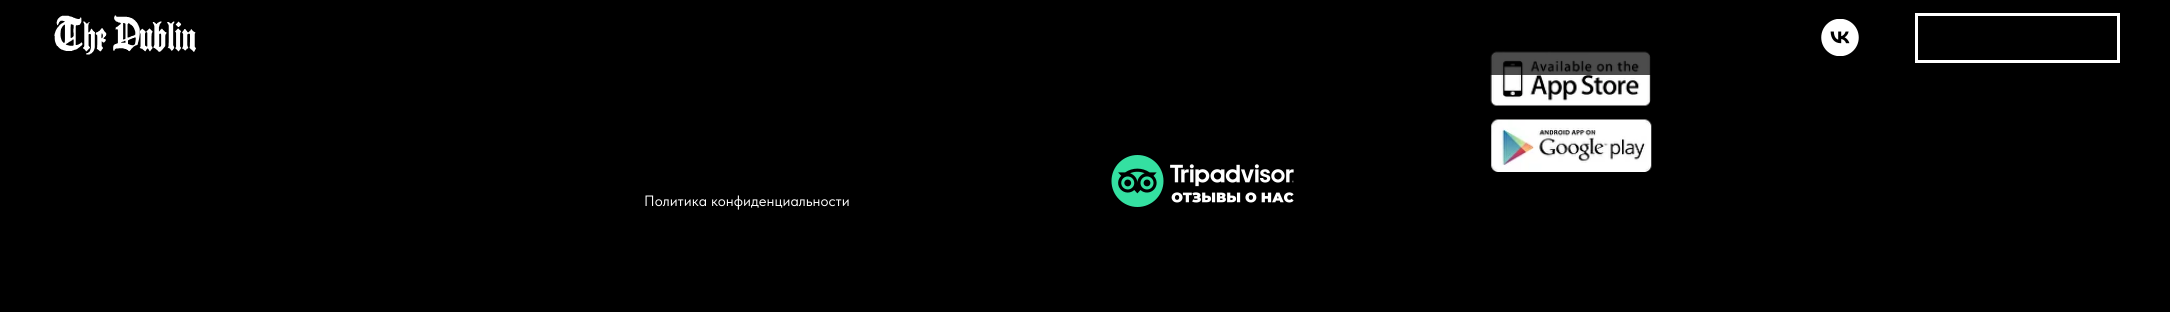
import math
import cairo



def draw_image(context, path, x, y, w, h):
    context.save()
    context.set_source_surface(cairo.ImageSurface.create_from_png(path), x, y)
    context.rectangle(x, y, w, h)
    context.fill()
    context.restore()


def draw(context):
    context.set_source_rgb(0, 0, 0)
    context.paint()
    draw_image(context, "images/3.png", 1490, 51, 161, 55)
    context.set_source_rgba(0, 0, 0, 0.7)
    context.rectangle(1490, 51, 161, 24)
    context.fill()
    draw_image(context, "images/1.png", 54, 15, 142, 40)
    draw_image(context, "images/2.png", 1821, 19, 38, 37)
    context.rectangle(1916.5, 14.5, 202, 47)
    context.set_source_rgb(1, 1, 1)
    context.set_line_width(3)
    context.stroke()
    draw_image(context, "images/4.png", 1491, 119, 161, 53)
    draw_image(context, "images/5.png", 1111, 155, 183, 52)
    context.select_font_face("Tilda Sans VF")
    context.set_font_size(15)
    context.move_to(644, 206)
    context.show_text("Политика конфиденциальности")


surface = cairo.ImageSurface(cairo.Format.RGB24, 2170, 312)
context = cairo.Context(surface)
options = cairo.FontOptions()
options.set_hint_metrics(cairo.HintMetrics.OFF)
options.set_hint_style(cairo.HintStyle.NONE)
context.set_font_options(options)
context.set_miter_limit(4)
draw(context)
surface.write_to_png("out.png")
